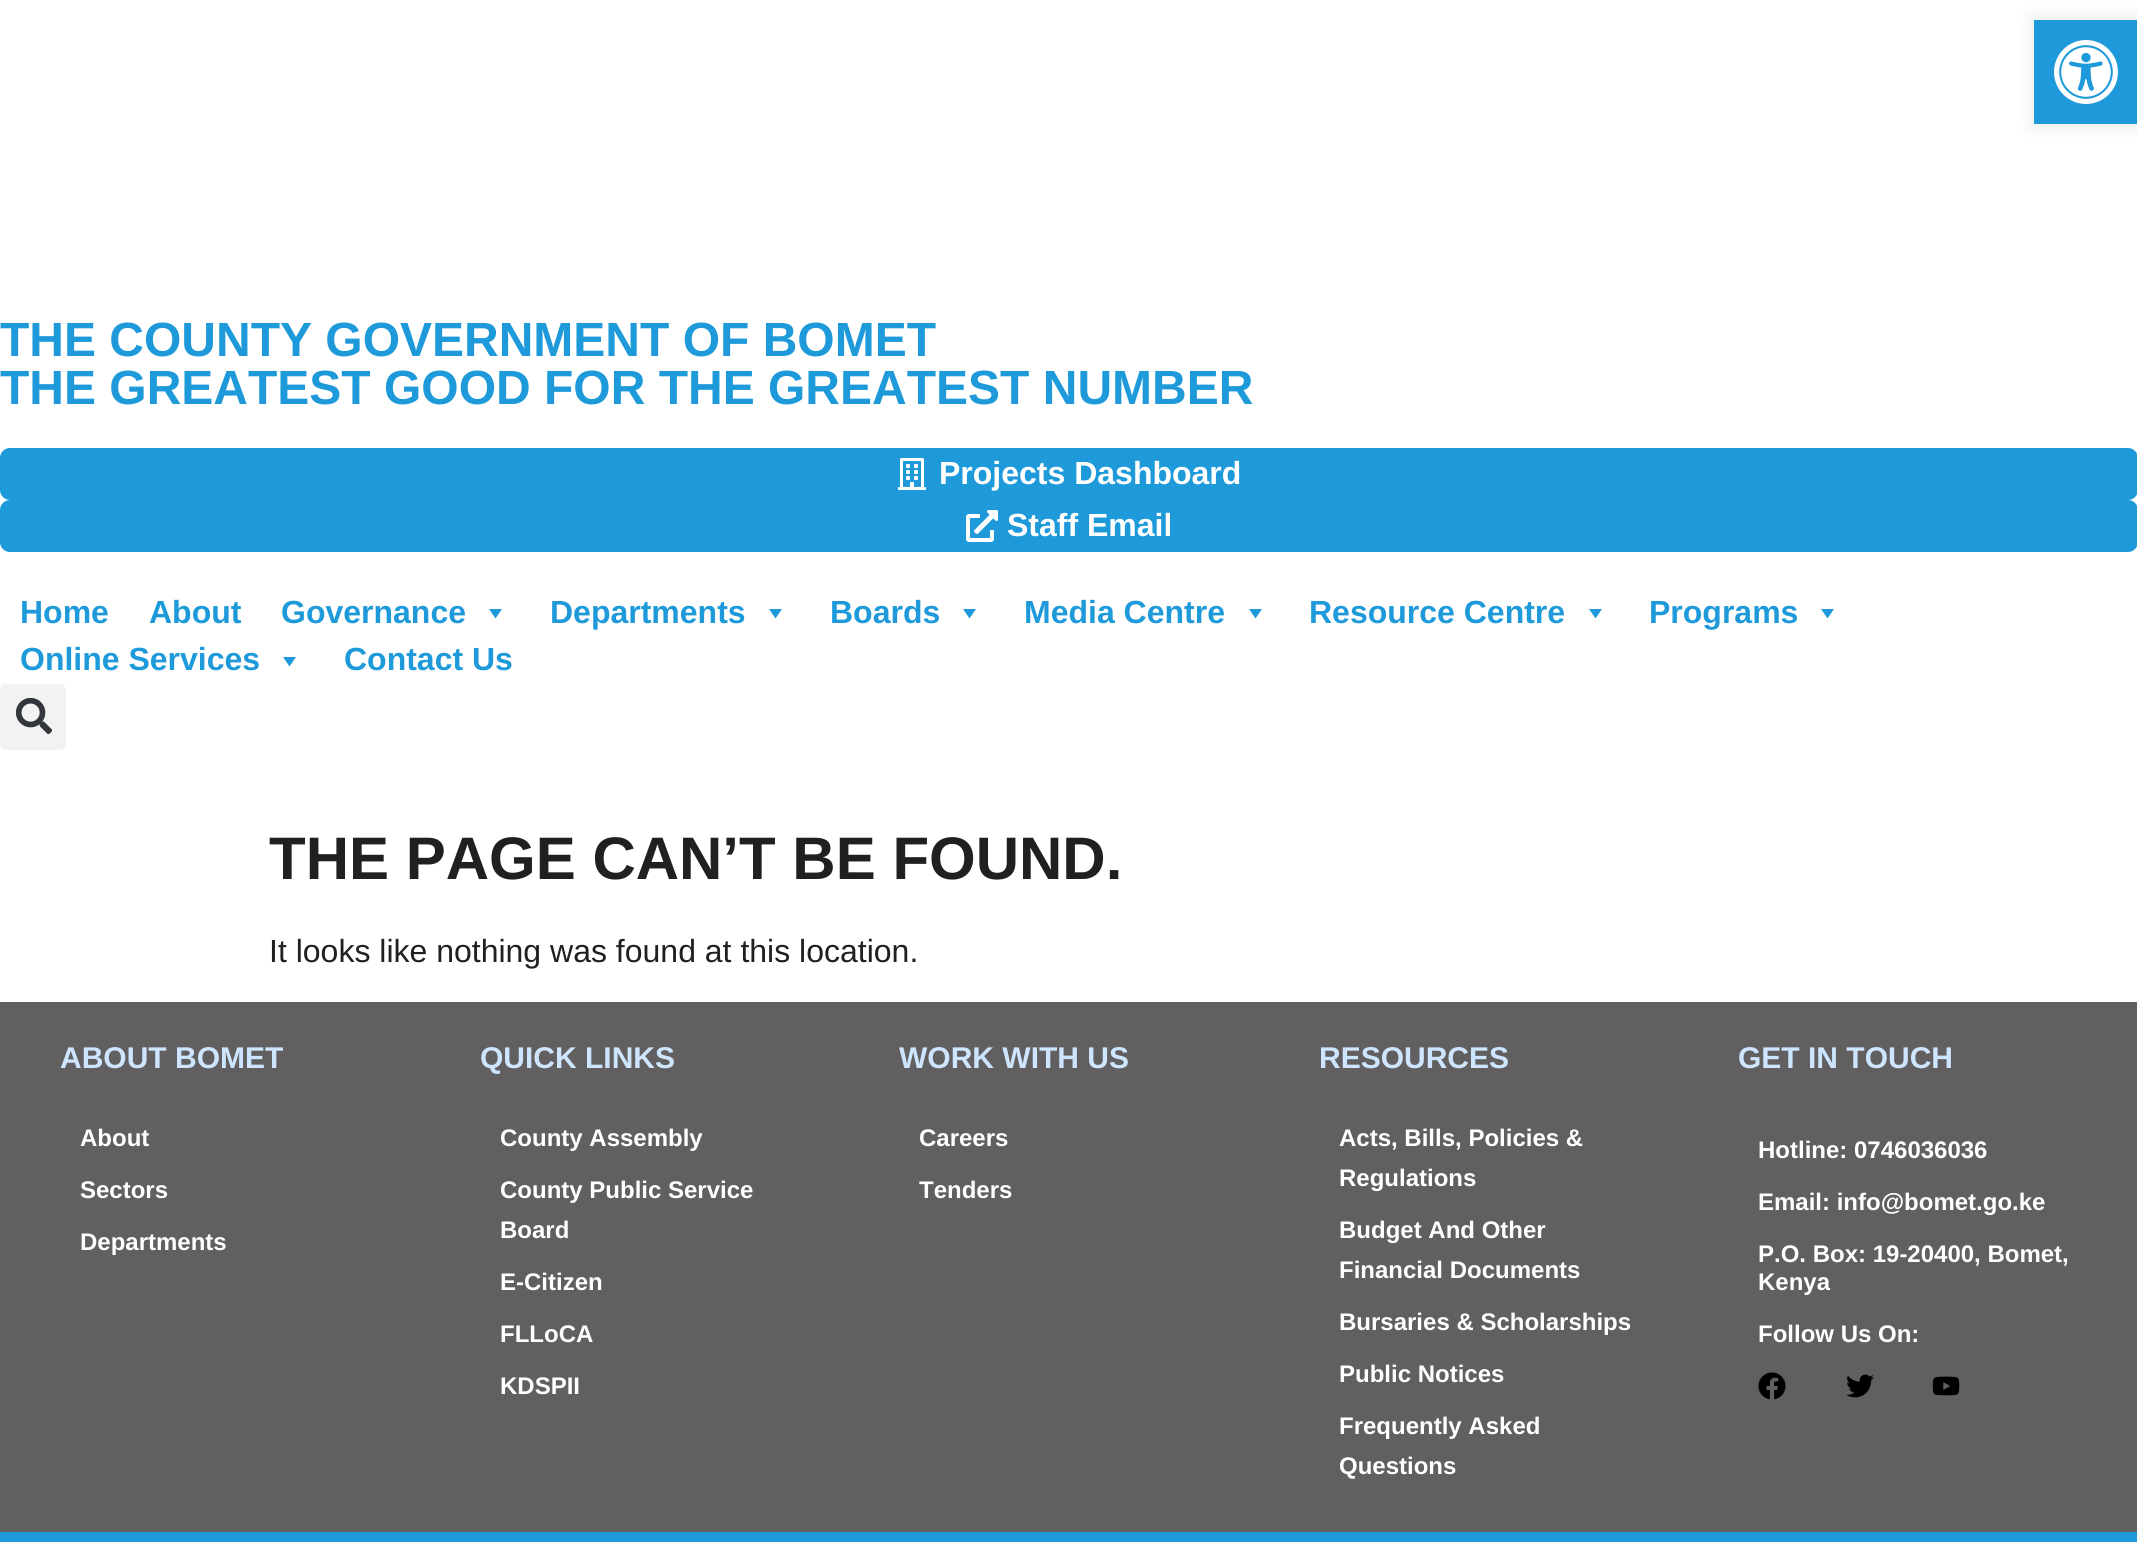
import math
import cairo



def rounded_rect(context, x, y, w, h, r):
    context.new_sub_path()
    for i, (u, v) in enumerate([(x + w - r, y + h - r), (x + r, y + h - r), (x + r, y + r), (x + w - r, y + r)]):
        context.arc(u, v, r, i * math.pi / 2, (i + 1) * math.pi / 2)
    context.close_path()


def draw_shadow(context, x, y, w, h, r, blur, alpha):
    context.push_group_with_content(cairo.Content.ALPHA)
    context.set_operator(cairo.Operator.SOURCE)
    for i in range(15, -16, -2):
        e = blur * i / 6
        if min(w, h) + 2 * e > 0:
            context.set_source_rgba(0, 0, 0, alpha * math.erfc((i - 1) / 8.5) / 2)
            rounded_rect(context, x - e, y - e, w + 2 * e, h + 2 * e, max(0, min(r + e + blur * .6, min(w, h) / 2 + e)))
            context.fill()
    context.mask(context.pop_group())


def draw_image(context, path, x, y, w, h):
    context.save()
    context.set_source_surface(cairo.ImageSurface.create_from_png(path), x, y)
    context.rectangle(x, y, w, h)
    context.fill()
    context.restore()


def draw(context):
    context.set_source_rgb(1, 1, 1)
    context.paint()
    context.set_source_rgb(0, 0, 0)
    draw_shadow(context, 2034, 20, 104, 104, 0, 10, 0.1)
    context.set_source_rgb(30 / 255, 154 / 255, 218 / 255)
    context.rectangle(2034, 20, 103, 104)
    context.fill()
    draw_image(context, "images/1.png", 2054, 40, 64, 64)
    rounded_rect(context, 0, 448, 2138, 52, 10)
    context.fill()
    draw_image(context, "images/2.png", 898, 458, 28, 32)
    rounded_rect(context, 0, 500, 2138, 52, 10)
    context.fill()
    draw_image(context, "images/3.png", 966, 510, 32, 32)
    context.new_path()
    context.move_to(502, 609)
    context.line_to(495.5, 618.5)
    context.line_to(489, 609)
    context.close_path()
    context.fill()
    context.new_path()
    context.move_to(782, 609)
    context.line_to(775.5, 618.5)
    context.line_to(769, 609)
    context.close_path()
    context.fill()
    context.new_path()
    context.move_to(976, 609)
    context.line_to(969.5, 618.5)
    context.line_to(963, 609)
    context.close_path()
    context.fill()
    context.new_path()
    context.move_to(1262, 609)
    context.line_to(1255.5, 618.5)
    context.line_to(1249, 609)
    context.close_path()
    context.fill()
    context.new_path()
    context.move_to(1602, 609)
    context.line_to(1595.5, 618.5)
    context.line_to(1589, 609)
    context.close_path()
    context.fill()
    context.new_path()
    context.move_to(1834, 609)
    context.line_to(1827.5, 618.5)
    context.line_to(1821, 609)
    context.close_path()
    context.fill()
    context.new_path()
    context.move_to(296, 657)
    context.line_to(289.5, 666.5)
    context.line_to(283, 657)
    context.close_path()
    context.fill()
    context.set_source_rgb(242 / 255, 242 / 255, 242 / 255)
    rounded_rect(context, 0, 684, 66, 66, 6)
    context.fill()
    draw_image(context, "images/4.png", 16, 698, 36, 36)
    context.set_source_rgb(97 / 255, 95 / 255, 95 / 255)
    context.rectangle(0, 1002, 2137, 530)
    context.fill()
    draw_image(context, "images/5.png", 1758, 1372, 28, 28)
    draw_image(context, "images/6.png", 1846, 1374, 28, 24)
    draw_image(context, "images/7.png", 1932, 1376, 28, 20)
    context.set_source_rgb(30 / 255, 154 / 255, 218 / 255)
    context.rectangle(0, 1532, 2137, 10)
    context.fill()
    context.select_font_face("Liberation Sans", cairo.FontSlant.NORMAL, cairo.FontWeight.BOLD)
    context.set_font_size(48)
    context.move_to(0, 356)
    context.show_text("THE COUNTY GOVERNMENT OF BOMET")
    context.move_to(0, 404)
    context.show_text("THE GREATEST GOOD FOR THE GREATEST NUMBER")
    context.set_font_size(32)
    context.set_source_rgb(1, 1, 1)
    context.move_to(939, 484)
    context.show_text("Projects Dashboard")
    context.move_to(1007, 536)
    context.show_text("Staff Email")
    context.set_source_rgb(30 / 255, 154 / 255, 218 / 255)
    context.move_to(20, 623)
    context.show_text("Home")
    context.move_to(149, 623)
    context.show_text("About")
    context.move_to(281, 623)
    context.show_text("Governance")
    context.move_to(550, 623)
    context.show_text("Departments")
    context.move_to(830, 623)
    context.show_text("Boards")
    context.move_to(1024, 623)
    context.show_text("Media Centre")
    context.move_to(1309, 623)
    context.show_text("Resource Centre")
    context.move_to(1649, 623)
    context.show_text("Programs")
    context.move_to(20, 670)
    context.show_text("Online Services")
    context.move_to(344, 670)
    context.show_text("Contact Us")
    context.set_font_size(60)
    context.set_source_rgb(33 / 255, 31 / 255, 31 / 255)
    context.move_to(269, 879)
    context.show_text("THE PAGE CAN’T BE FOUND.")
    context.select_font_face("Liberation Sans")
    context.set_font_size(32)
    context.move_to(269, 962)
    context.show_text("It looks like nothing was found at this location.")
    context.select_font_face("Liberation Sans", cairo.FontSlant.NORMAL, cairo.FontWeight.BOLD)
    context.set_font_size(30)
    context.set_source_rgb(206 / 255, 229 / 255, 1)
    context.move_to(60, 1068)
    context.show_text("ABOUT BOMET")
    context.set_font_size(24)
    context.set_source_rgb(1, 1, 1)
    context.move_to(80, 1146)
    context.show_text("About")
    context.move_to(80, 1198)
    context.show_text("Sectors")
    context.move_to(80, 1250)
    context.show_text("Departments")
    context.set_font_size(30)
    context.set_source_rgb(206 / 255, 229 / 255, 1)
    context.move_to(480, 1068)
    context.show_text("QUICK LINKS")
    context.set_font_size(24)
    context.set_source_rgb(1, 1, 1)
    context.move_to(500, 1146)
    context.show_text("County Assembly")
    context.move_to(500, 1198)
    context.show_text("County Public Service")
    context.move_to(500, 1238)
    context.show_text("Board")
    context.move_to(500, 1290)
    context.show_text("E-Citizen")
    context.move_to(500, 1342)
    context.show_text("FLLoCA")
    context.move_to(500, 1394)
    context.show_text("KDSPII")
    context.set_font_size(30)
    context.set_source_rgb(206 / 255, 229 / 255, 1)
    context.move_to(899, 1068)
    context.show_text("WORK WITH US")
    context.set_font_size(24)
    context.set_source_rgb(1, 1, 1)
    context.move_to(919, 1146)
    context.show_text("Careers")
    context.move_to(919, 1198)
    context.show_text("Tenders")
    context.set_font_size(30)
    context.set_source_rgb(206 / 255, 229 / 255, 1)
    context.move_to(1319, 1068)
    context.show_text("RESOURCES")
    context.set_font_size(24)
    context.set_source_rgb(1, 1, 1)
    context.move_to(1339, 1146)
    context.show_text("Acts, Bills, Policies &")
    context.move_to(1339, 1186)
    context.show_text("Regulations")
    context.move_to(1339, 1238)
    context.show_text("Budget And Other")
    context.move_to(1339, 1278)
    context.show_text("Financial Documents")
    context.move_to(1339, 1330)
    context.show_text("Bursaries & Scholarships")
    context.move_to(1339, 1382)
    context.show_text("Public Notices")
    context.move_to(1339, 1434)
    context.show_text("Frequently Asked")
    context.move_to(1339, 1474)
    context.show_text("Questions")
    context.set_font_size(30)
    context.set_source_rgb(206 / 255, 229 / 255, 1)
    context.move_to(1738, 1068)
    context.show_text("GET IN TOUCH")
    context.set_font_size(24)
    context.set_source_rgb(1, 1, 1)
    context.move_to(1758, 1158)
    context.show_text("Hotline: 0746036036")
    context.move_to(1758, 1210)
    context.show_text("Email: info@bomet.go.ke")
    context.move_to(1758, 1262)
    context.show_text("P.O. Box: 19-20400, Bomet,")
    context.move_to(1758, 1290)
    context.show_text("Kenya")
    context.move_to(1758, 1342)
    context.show_text("Follow Us On:")


surface = cairo.ImageSurface(cairo.Format.RGB24, 2137, 1542)
context = cairo.Context(surface)
options = cairo.FontOptions()
options.set_hint_metrics(cairo.HintMetrics.OFF)
options.set_hint_style(cairo.HintStyle.NONE)
context.set_font_options(options)
context.set_miter_limit(4)
draw(context)
surface.write_to_png("out.png")
